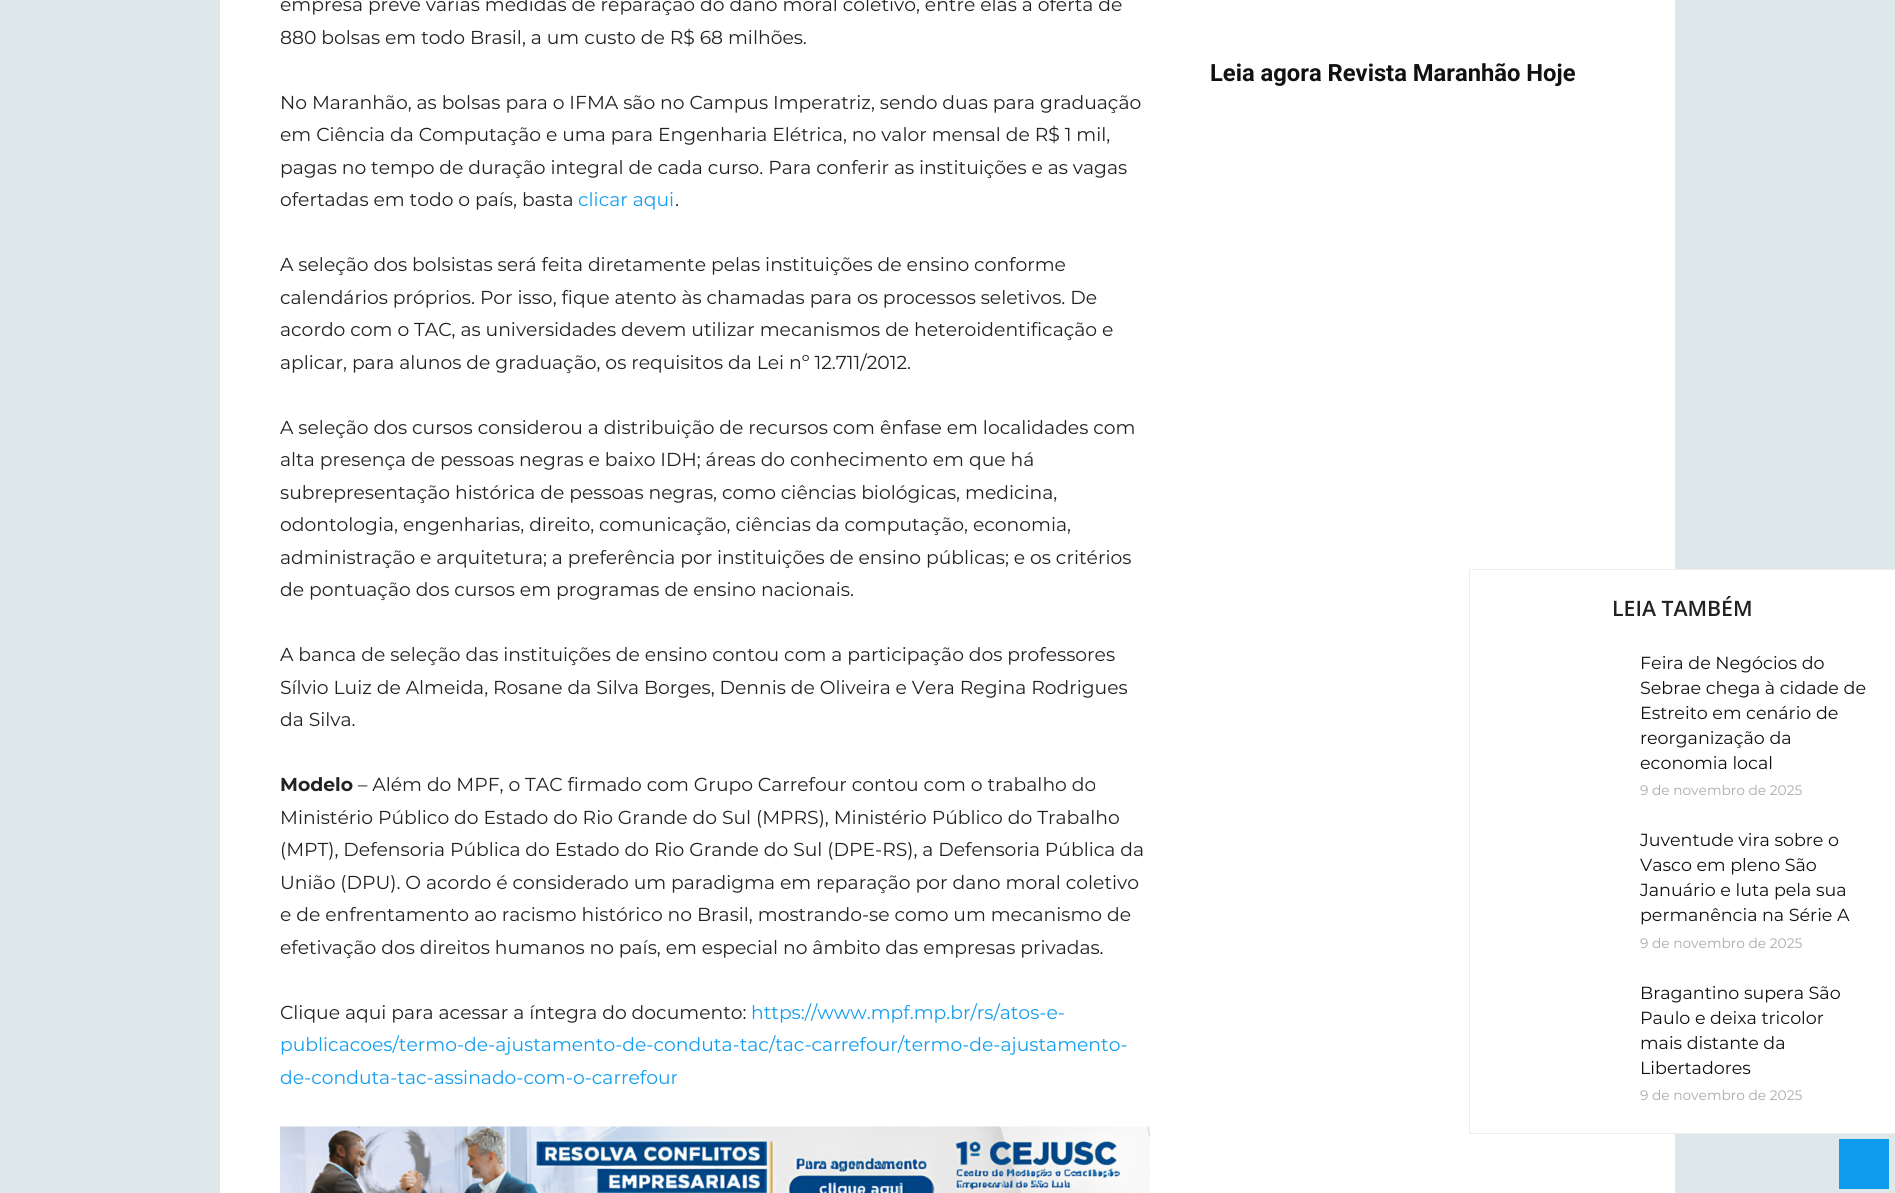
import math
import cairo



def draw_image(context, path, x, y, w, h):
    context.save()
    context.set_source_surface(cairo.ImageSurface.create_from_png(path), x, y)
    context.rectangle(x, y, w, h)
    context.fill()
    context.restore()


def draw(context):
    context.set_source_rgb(222 / 255, 232 / 255, 234 / 255)
    context.paint()
    context.set_source_rgb(1, 1, 1)
    context.rectangle(220, 0, 1455, 1193)
    context.fill()
    draw_image(context, "images/1.png", 280, 1126, 870, 67)
    context.rectangle(1675, 570, 220, 563)
    context.fill()
    context.set_source_rgb(237 / 255, 237 / 255, 237 / 255)
    context.rectangle(1469, 569, 426, 1)
    context.fill()
    context.rectangle(1469, 1133, 426, 1)
    context.fill()
    context.rectangle(1469, 569, 1, 565)
    context.fill()
    context.set_source_rgb(16 / 255, 156 / 255, 237 / 255)
    context.rectangle(1839, 1139, 50, 50)
    context.fill()
    context.select_font_face("Montserrat")
    context.set_font_size(18.75)
    context.set_source_rgb(34 / 255, 34 / 255, 34 / 255)
    context.move_to(280, 11)
    context.show_text("empresa prevê várias medidas de reparação do dano moral coletivo, entre elas a oferta de")
    context.move_to(280, 44)
    context.show_text("880 bolsas em todo Brasil, a um custo de R$ 68 milhões.")
    context.move_to(280, 109)
    context.show_text("No Maranhão, as bolsas para o IFMA são no Campus Imperatriz, sendo duas para graduação")
    context.move_to(280, 141)
    context.show_text("em Ciência da Computação e uma para Engenharia Elétrica, no valor mensal de R$ 1 mil,")
    context.move_to(280, 174)
    context.show_text("pagas no tempo de duração integral de cada curso. Para conferir as instituições e as vagas")
    context.move_to(280, 206)
    context.show_text("ofertadas em todo o país, basta")
    context.set_source_rgb(18 / 255, 157 / 255, 238 / 255)
    context.move_to(578, 206)
    context.show_text("clicar aqui")
    context.set_source_rgb(34 / 255, 34 / 255, 34 / 255)
    context.move_to(675, 206)
    context.show_text(".")
    context.move_to(280, 271)
    context.show_text("A seleção dos bolsistas será feita diretamente pelas instituições de ensino conforme")
    context.move_to(280, 304)
    context.show_text("calendários próprios. Por isso, fique atento às chamadas para os processos seletivos. De")
    context.move_to(280, 336)
    context.show_text("acordo com o TAC, as universidades devem utilizar mecanismos de heteroidentificação e")
    context.move_to(280, 369)
    context.show_text("aplicar, para alunos de graduação, os requisitos da Lei nº 12.711/2012.")
    context.move_to(280, 434)
    context.show_text("A seleção dos cursos considerou a distribuição de recursos com ênfase em localidades com")
    context.move_to(280, 466)
    context.show_text("alta presença de pessoas negras e baixo IDH; áreas do conhecimento em que há")
    context.move_to(280, 499)
    context.show_text("subrepresentação histórica de pessoas negras, como ciências biológicas, medicina,")
    context.move_to(280, 531)
    context.show_text("odontologia, engenharias, direito, comunicação, ciências da computação, economia,")
    context.move_to(280, 564)
    context.show_text("administração e arquitetura; a preferência por instituições de ensino públicas; e os critérios")
    context.move_to(280, 596)
    context.show_text("de pontuação dos cursos em programas de ensino nacionais.")
    context.move_to(280, 661)
    context.show_text("A banca de seleção das instituições de ensino contou com a participação dos professores")
    context.move_to(280, 694)
    context.show_text("Sílvio Luiz de Almeida, Rosane da Silva Borges, Dennis de Oliveira e Vera Regina Rodrigues")
    context.move_to(280, 726)
    context.show_text("da Silva.")
    context.select_font_face("Montserrat", cairo.FontSlant.NORMAL, cairo.FontWeight.BOLD)
    context.move_to(280, 791)
    context.show_text("Modelo")
    context.select_font_face("Montserrat")
    context.move_to(358, 791)
    context.show_text("– Além do MPF, o TAC firmado com Grupo Carrefour contou com o trabalho do")
    context.move_to(280, 824)
    context.show_text("Ministério Público do Estado do Rio Grande do Sul (MPRS), Ministério Público do Trabalho")
    context.move_to(280, 856)
    context.show_text("(MPT), Defensoria Pública do Estado do Rio Grande do Sul (DPE-RS), a Defensoria Pública da")
    context.move_to(280, 889)
    context.show_text("União (DPU). O acordo é considerado um paradigma em reparação por dano moral coletivo")
    context.move_to(280, 921)
    context.show_text("e de enfrentamento ao racismo histórico no Brasil, mostrando-se como um mecanismo de")
    context.move_to(280, 954)
    context.show_text("efetivação dos direitos humanos no país, em especial no âmbito das empresas privadas.")
    context.move_to(280, 1019)
    context.show_text("Clique aqui para acessar a íntegra do documento:")
    context.set_source_rgb(18 / 255, 157 / 255, 238 / 255)
    context.move_to(751, 1019)
    context.show_text("https://www.mpf.mp.br/rs/atos-e-")
    context.move_to(280, 1051)
    context.show_text("publicacoes/termo-de-ajustamento-de-conduta-tac/tac-carrefour/termo-de-ajustamento-")
    context.move_to(280, 1084)
    context.show_text("de-conduta-tac-assinado-com-o-carrefour")
    context.select_font_face("Roboto", cairo.FontSlant.NORMAL, cairo.FontWeight.BOLD)
    context.set_font_size(23.75)
    context.set_source_rgb(17 / 255, 17 / 255, 17 / 255)
    context.move_to(1210, 81)
    context.show_text("Leia agora Revista Maranhão Hoje")
    context.select_font_face("Open Sans SemiBold")
    context.set_font_size(21.25)
    context.set_source_rgb(34 / 255, 34 / 255, 34 / 255)
    context.move_to(1612, 616)
    context.show_text("LEIA TAMBÉM")
    context.select_font_face("Montserrat")
    context.set_font_size(17.5)
    context.set_source_rgb(17 / 255, 17 / 255, 17 / 255)
    context.move_to(1640, 669)
    context.show_text("Feira de Negócios do")
    context.move_to(1640, 694)
    context.show_text("Sebrae chega à cidade de")
    context.move_to(1640, 719)
    context.show_text("Estreito em cenário de")
    context.move_to(1640, 744)
    context.show_text("reorganização da")
    context.move_to(1640, 769)
    context.show_text("economia local")
    context.set_font_size(13.75)
    context.set_source_rgb(170 / 255, 170 / 255, 170 / 255)
    context.move_to(1640, 795)
    context.show_text("9 de novembro de 2025")
    context.set_font_size(17.5)
    context.set_source_rgb(17 / 255, 17 / 255, 17 / 255)
    context.move_to(1640, 846)
    context.show_text("Juventude vira sobre o")
    context.move_to(1640, 871)
    context.show_text("Vasco em pleno São")
    context.move_to(1640, 896)
    context.show_text("Januário e luta pela sua")
    context.move_to(1640, 921)
    context.show_text("permanência na Série A")
    context.set_font_size(13.75)
    context.set_source_rgb(170 / 255, 170 / 255, 170 / 255)
    context.move_to(1640, 948)
    context.show_text("9 de novembro de 2025")
    context.set_font_size(17.5)
    context.set_source_rgb(17 / 255, 17 / 255, 17 / 255)
    context.move_to(1640, 999)
    context.show_text("Bragantino supera São")
    context.move_to(1640, 1024)
    context.show_text("Paulo e deixa tricolor")
    context.move_to(1640, 1049)
    context.show_text("mais distante da")
    context.move_to(1640, 1074)
    context.show_text("Libertadores")
    context.set_font_size(13.75)
    context.set_source_rgb(170 / 255, 170 / 255, 170 / 255)
    context.move_to(1640, 1100)
    context.show_text("9 de novembro de 2025")


surface = cairo.ImageSurface(cairo.Format.RGB24, 1895, 1193)
context = cairo.Context(surface)
options = cairo.FontOptions()
options.set_hint_metrics(cairo.HintMetrics.OFF)
options.set_hint_style(cairo.HintStyle.NONE)
context.set_font_options(options)
context.set_miter_limit(4)
draw(context)
surface.write_to_png("out.png")
